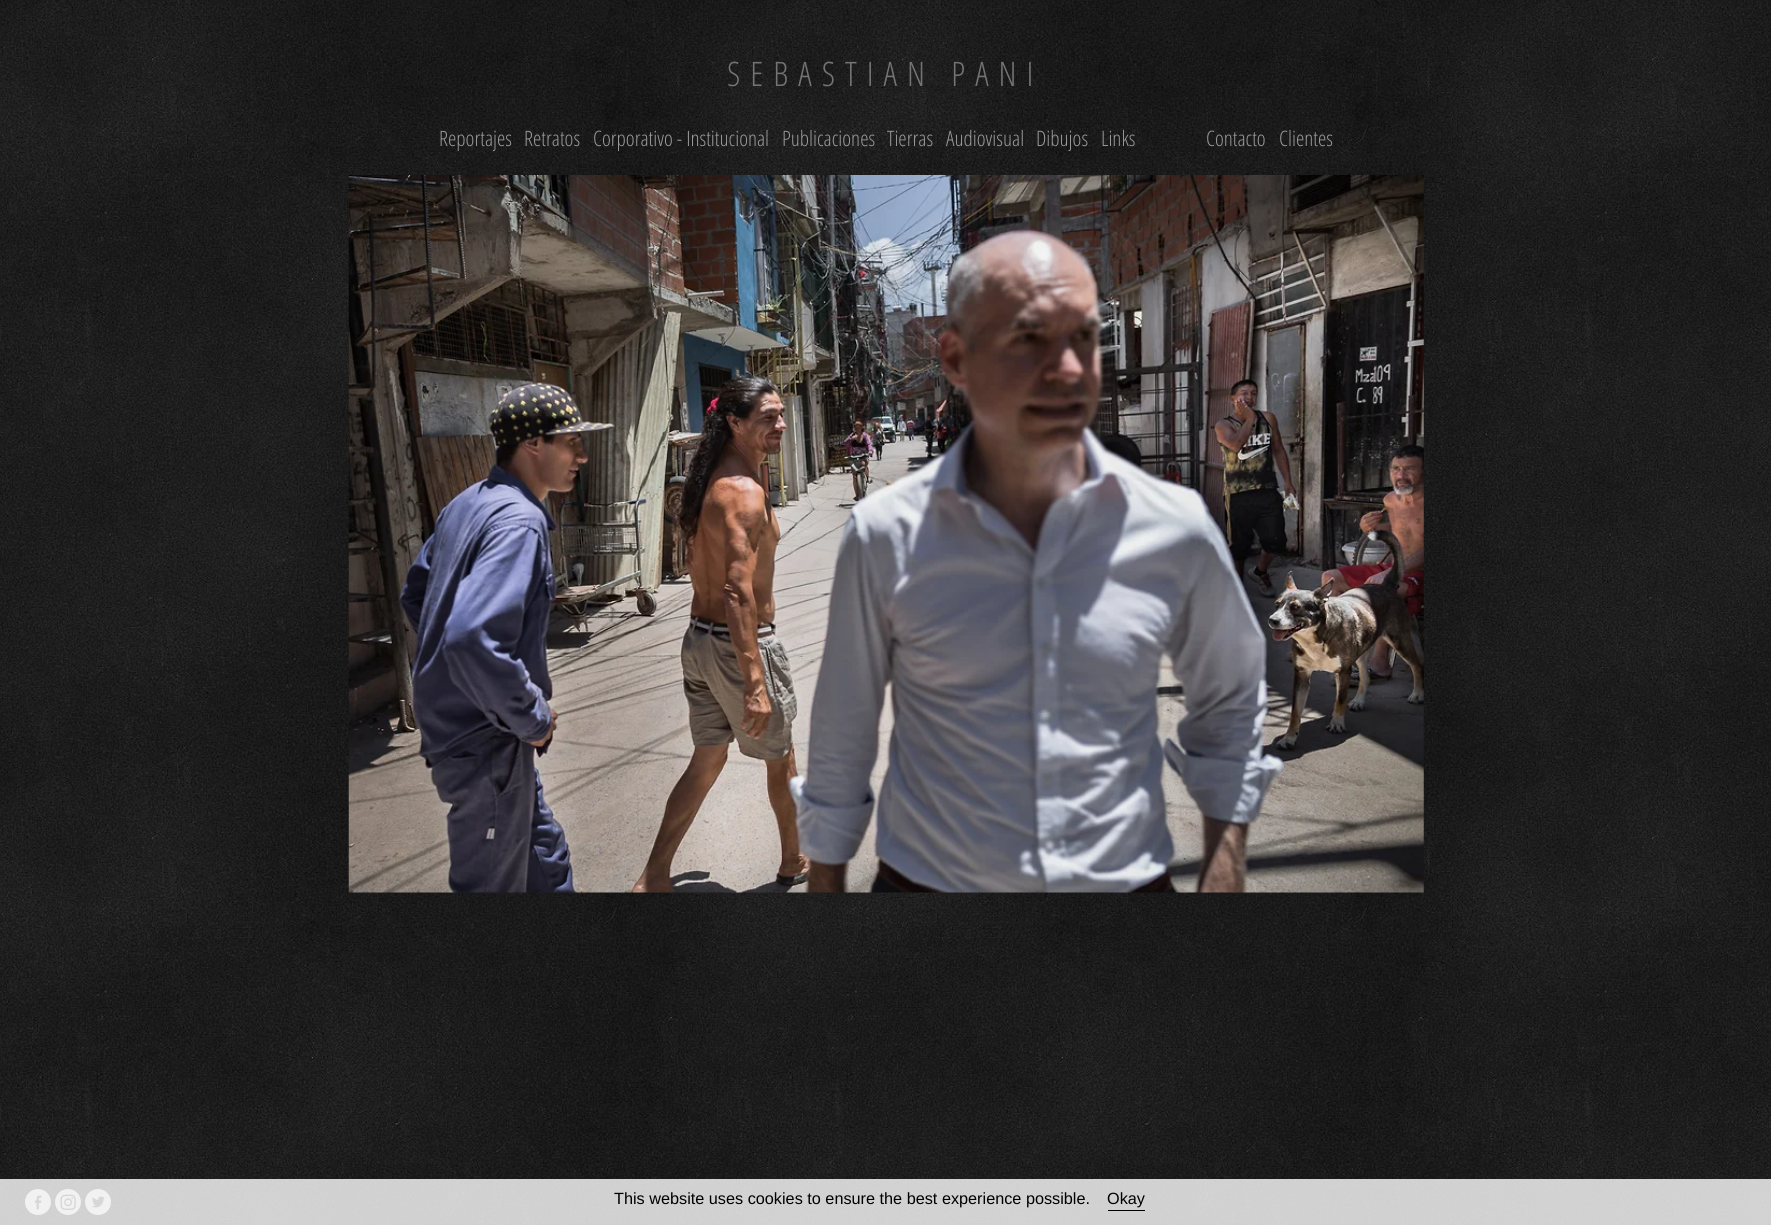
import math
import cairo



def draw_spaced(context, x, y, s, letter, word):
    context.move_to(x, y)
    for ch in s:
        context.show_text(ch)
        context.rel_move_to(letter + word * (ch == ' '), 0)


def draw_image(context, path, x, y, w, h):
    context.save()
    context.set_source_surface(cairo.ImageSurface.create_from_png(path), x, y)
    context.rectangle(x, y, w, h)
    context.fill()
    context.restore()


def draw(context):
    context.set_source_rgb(1, 1, 1)
    context.paint()
    draw_image(context, "images/1.png", 0, 0, 1771, 1225)
    draw_image(context, "images/2.png", 348, 175, 1076, 718)
    context.set_source_rgba(1, 1, 1, 0.7)
    context.arc(38, 1202, 13, 0, 2 * math.pi)
    context.fill()
    draw_image(context, "images/3.png", 34, 1195, 8, 15)
    context.arc(68, 1202, 13, 0, 2 * math.pi)
    context.fill()
    draw_image(context, "images/4.png", 60, 1194, 16, 16)
    context.arc(98, 1202, 13, 0, 2 * math.pi)
    context.fill()
    draw_image(context, "images/5.png", 92, 1196, 13, 12)
    context.set_source_rgba(1, 1, 1, 0.8)
    context.rectangle(0, 1179, 1771, 46)
    context.fill()
    context.set_source_rgb(0, 0, 0)
    context.rectangle(1108, 1210, 37, 1)
    context.fill()
    context.select_font_face("Open Sans Condensed Light")
    context.set_font_size(33.75)
    context.set_source_rgb(116 / 255, 116 / 255, 116 / 255)
    draw_spaced(context, 727, 86, "SEBASTIAN PANI", 10, 0)
    context.set_font_size(21.25)
    context.set_source_rgb(153 / 255, 153 / 255, 153 / 255)
    context.move_to(439, 146)
    context.show_text("Reportajes")
    context.move_to(524, 146)
    context.show_text("Retratos")
    context.move_to(593, 146)
    context.show_text("Corporativo - Institucional")
    context.move_to(782, 146)
    context.show_text("Publicaciones")
    context.move_to(887, 146)
    context.show_text("Tierras")
    context.move_to(946, 146)
    context.show_text("Audiovisual")
    context.move_to(1036, 146)
    context.show_text("Dibujos")
    context.move_to(1101, 146)
    context.show_text("Links")
    context.move_to(1206, 146)
    context.show_text("Contacto")
    context.move_to(1279, 146)
    context.show_text("Clientes")
    context.select_font_face("Liberation Sans")
    context.set_font_size(16.25)
    context.set_source_rgb(0, 0, 0)
    context.move_to(614, 1204)
    context.show_text("This website uses cookies to ensure the best experience possible.")
    context.move_to(1107, 1204)
    context.show_text("Okay")


surface = cairo.ImageSurface(cairo.Format.RGB24, 1771, 1225)
context = cairo.Context(surface)
options = cairo.FontOptions()
options.set_hint_metrics(cairo.HintMetrics.OFF)
options.set_hint_style(cairo.HintStyle.NONE)
context.set_font_options(options)
context.set_miter_limit(4)
draw(context)
surface.write_to_png("out.png")
